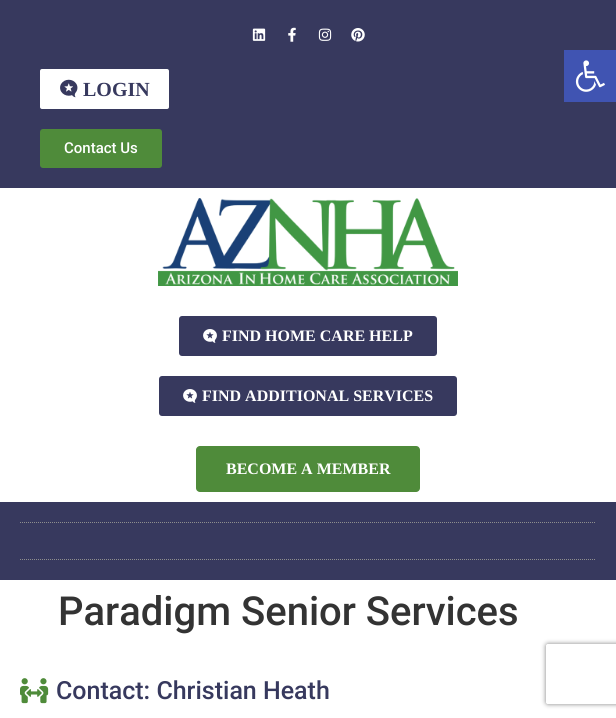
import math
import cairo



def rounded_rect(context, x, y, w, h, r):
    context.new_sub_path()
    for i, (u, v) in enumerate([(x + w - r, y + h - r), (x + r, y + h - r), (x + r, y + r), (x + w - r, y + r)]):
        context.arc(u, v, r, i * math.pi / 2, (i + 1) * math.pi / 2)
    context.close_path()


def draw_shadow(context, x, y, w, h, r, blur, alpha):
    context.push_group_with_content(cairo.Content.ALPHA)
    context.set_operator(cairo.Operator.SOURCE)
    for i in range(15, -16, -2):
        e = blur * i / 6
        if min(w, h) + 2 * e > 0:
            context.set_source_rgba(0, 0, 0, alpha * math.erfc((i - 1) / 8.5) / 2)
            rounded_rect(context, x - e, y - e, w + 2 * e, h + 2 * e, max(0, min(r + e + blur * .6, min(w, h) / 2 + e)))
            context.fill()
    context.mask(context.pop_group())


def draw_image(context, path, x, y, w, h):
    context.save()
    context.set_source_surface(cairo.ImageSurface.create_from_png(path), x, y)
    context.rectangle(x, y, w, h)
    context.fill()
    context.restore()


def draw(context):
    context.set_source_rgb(1, 1, 1)
    context.paint()
    context.set_source_rgb(55 / 255, 57 / 255, 94 / 255)
    context.rectangle(0, 0, 616, 188)
    context.fill()
    context.set_source_rgb(64 / 255, 84 / 255, 178 / 255)
    context.rectangle(564, 50, 52, 52)
    context.fill()
    draw_image(context, "images/1.png", 575, 60, 30, 32)
    draw_image(context, "images/2.png", 252, 28, 14, 13)
    draw_image(context, "images/3.png", 288, 27, 8, 15)
    draw_image(context, "images/4.png", 318, 28, 14, 13)
    draw_image(context, "images/5.png", 351, 28, 14, 14)
    context.set_source_rgb(1, 1, 1)
    rounded_rect(context, 40, 69, 129, 40, 2)
    context.fill()
    draw_image(context, "images/6.png", 60, 79, 18, 19)
    context.set_source_rgb(79 / 255, 139 / 255, 58 / 255)
    rounded_rect(context, 40, 129, 122, 39, 3)
    context.fill()
    draw_image(context, "images/7.png", 158, 198, 300, 88)
    context.set_source_rgb(55 / 255, 57 / 255, 94 / 255)
    rounded_rect(context, 179, 316, 258, 40, 3)
    context.fill()
    draw_image(context, "images/8.png", 203, 329, 14, 14)
    rounded_rect(context, 159, 376, 298, 40, 3)
    context.fill()
    draw_image(context, "images/8.png", 183, 389, 14, 14)
    context.set_source_rgb(79 / 255, 139 / 255, 58 / 255)
    rounded_rect(context, 196, 446, 224, 46, 4)
    context.fill()
    context.set_source_rgb(55 / 255, 57 / 255, 94 / 255)
    context.rectangle(0, 502, 616, 78)
    context.fill()
    context.new_path()
    context.move_to(20, 522.5)
    context.line_to(596, 522.5)
    context.set_source_rgb(142 / 255, 142 / 255, 142 / 255)
    context.set_line_width(1)
    context.set_dash([1, 1])
    context.stroke()
    context.new_path()
    context.move_to(20, 559.5)
    context.line_to(596, 559.5)
    context.stroke()
    draw_image(context, "images/9.png", 20, 678, 29, 26)
    context.save()
    context.set_fill_rule(cairo.FillRule.EVEN_ODD)
    context.new_path()
    context.move_to(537, 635)
    context.line_to(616, 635)
    context.line_to(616, 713)
    context.line_to(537, 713)
    context.close_path()
    context.move_to(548, 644)
    context.line_to(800, 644)
    context.curve_to(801, 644, 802, 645, 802, 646)
    context.line_to(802, 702)
    context.curve_to(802, 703, 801, 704, 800, 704)
    context.line_to(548, 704)
    context.curve_to(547, 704, 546, 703, 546, 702)
    context.line_to(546, 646)
    context.curve_to(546, 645, 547, 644, 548, 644)
    context.close_path()
    context.clip()
    context.set_source_rgb(128 / 255, 128 / 255, 128 / 255)
    draw_shadow(context, 546, 644, 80, 60, 2, 2.5, 1)
    context.restore()
    context.select_font_face("Liberation Serif", cairo.FontSlant.NORMAL, cairo.FontWeight.BOLD)
    context.set_font_size(20)
    context.set_source_rgb(55 / 255, 57 / 255, 94 / 255)
    context.move_to(83, 96)
    context.show_text("LOGIN")
    context.select_font_face("Roboto Medium")
    context.set_font_size(15)
    context.set_source_rgb(1, 1, 1)
    context.move_to(64, 153)
    context.show_text("Contact Us")
    context.select_font_face("Liberation Serif", cairo.FontSlant.NORMAL, cairo.FontWeight.BOLD)
    context.set_font_size(16)
    context.move_to(222, 341)
    context.show_text("FIND HOME CARE HELP")
    context.move_to(202, 401)
    context.show_text("FIND ADDITIONAL SERVICES")
    context.move_to(226, 474)
    context.show_text("BECOME A MEMBER")
    context.select_font_face("Roboto Medium")
    context.set_font_size(40)
    context.set_source_rgb(51 / 255, 51 / 255, 51 / 255)
    context.move_to(58, 625)
    context.show_text("Paradigm Senior Services")
    context.set_font_size(25)
    context.set_source_rgb(55 / 255, 57 / 255, 94 / 255)
    context.move_to(56, 699)
    context.show_text("Contact: Christian Heath")


surface = cairo.ImageSurface(cairo.Format.RGB24, 616, 718)
context = cairo.Context(surface)
options = cairo.FontOptions()
options.set_hint_metrics(cairo.HintMetrics.OFF)
options.set_hint_style(cairo.HintStyle.NONE)
context.set_font_options(options)
context.set_miter_limit(4)
draw(context)
surface.write_to_png("out.png")
